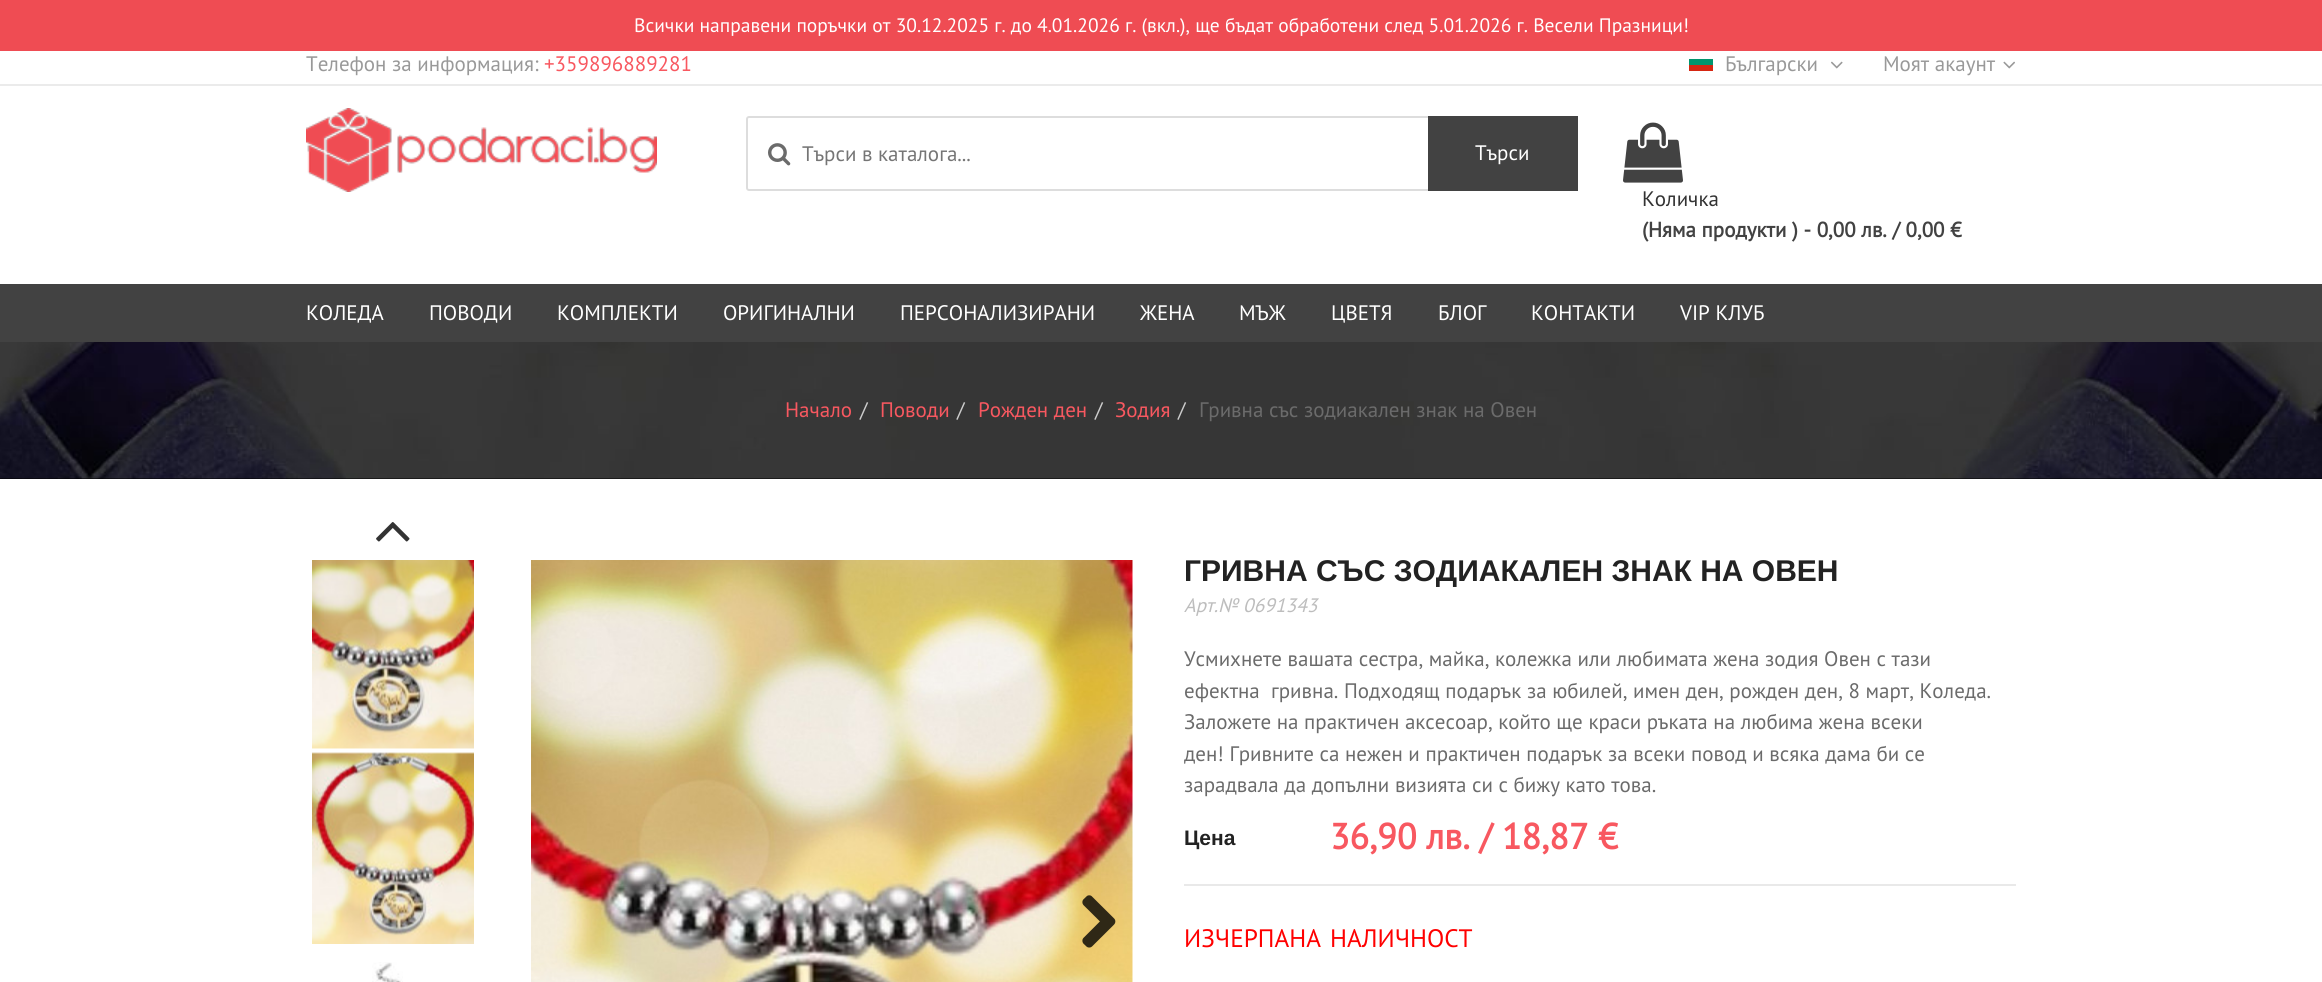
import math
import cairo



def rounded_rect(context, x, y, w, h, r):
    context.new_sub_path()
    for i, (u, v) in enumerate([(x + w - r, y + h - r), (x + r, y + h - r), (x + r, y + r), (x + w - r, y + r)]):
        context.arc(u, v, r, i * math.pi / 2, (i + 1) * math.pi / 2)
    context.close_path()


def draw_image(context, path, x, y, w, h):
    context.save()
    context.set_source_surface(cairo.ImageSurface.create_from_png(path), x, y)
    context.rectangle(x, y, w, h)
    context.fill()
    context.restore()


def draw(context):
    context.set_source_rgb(1, 1, 1)
    context.paint()
    context.set_source_rgb(239 / 255, 76 / 255, 83 / 255)
    context.rectangle(0, 0, 2322, 51)
    context.fill()
    context.set_source_rgb(235 / 255, 235 / 255, 235 / 255)
    context.rectangle(0, 84, 2322, 2)
    context.fill()
    context.set_source_rgb(214 / 255, 38 / 255, 18 / 255)
    context.rectangle(1689, 65, 24, 6)
    context.fill()
    context.set_source_rgb(0, 150 / 255, 110 / 255)
    context.rectangle(1689, 59, 24, 6)
    context.fill()
    draw_image(context, "images/1.png", 1831, 61, 12, 8)
    draw_image(context, "images/2.png", 2003, 61, 12, 8)
    draw_image(context, "images/3.png", 306, 108, 351, 84)
    rounded_rect(context, 747, 117, 830, 73, 2)
    context.set_source_rgb(221 / 255, 221 / 255, 221 / 255)
    context.stroke()
    draw_image(context, "images/4.png", 768, 143, 23, 23)
    context.set_source_rgb(66 / 255, 66 / 255, 66 / 255)
    context.rectangle(1428, 116, 150, 75)
    context.fill()
    draw_image(context, "images/5.png", 1623, 122, 60, 61)
    context.rectangle(0, 284, 2322, 58)
    context.fill()
    context.set_source_rgb(0, 0, 0)
    context.rectangle(0, 478, 2322, 1)
    context.fill()
    draw_image(context, "images/6.png", 0, 342, 2322, 137)
    draw_image(context, "images/7.png", 376, 522, 34, 20)
    draw_image(context, "images/8.png", 312, 560, 162, 189)
    draw_image(context, "images/9.png", 312, 752, 162, 192)
    draw_image(context, "images/10.png", 372, 962, 31, 20)
    draw_image(context, "images/11.png", 531, 560, 602, 422)
    draw_image(context, "images/12.png", 1082, 895, 34, 53)
    context.set_source_rgb(233 / 255, 233 / 255, 233 / 255)
    context.rectangle(1184, 884, 832, 2)
    context.fill()
    context.select_font_face("PT Sans")
    context.set_font_size(19.5)
    context.set_source_rgb(1, 1, 1)
    context.move_to(634, 32)
    context.show_text("Всички направени поръчки от 30.12.2025 г. до 4.01.2026 г. (вкл.), ще бъдат обработени след 5.01.2026 г. Весели Празници!")
    context.set_font_size(21)
    context.set_source_rgb(153 / 255, 153 / 255, 153 / 255)
    context.move_to(306, 71)
    context.show_text("Телефон за информация:")
    context.set_source_rgb(248 / 255, 88 / 255, 96 / 255)
    context.move_to(544, 71)
    context.show_text("+359896889281")
    context.set_source_rgb(153 / 255, 153 / 255, 153 / 255)
    context.move_to(1725, 71)
    context.show_text("Български")
    context.move_to(1883, 71)
    context.show_text("Моят акаунт")
    context.set_source_rgb(117 / 255, 117 / 255, 117 / 255)
    context.move_to(802, 161)
    context.show_text("Търси в каталога...")
    context.set_source_rgb(1, 1, 1)
    context.move_to(1475, 160)
    context.show_text("Търси")
    context.set_source_rgb(51 / 255, 51 / 255, 51 / 255)
    context.move_to(1642, 206)
    context.show_text("Количка")
    context.select_font_face("PT Sans", cairo.FontSlant.NORMAL, cairo.FontWeight.BOLD)
    context.set_source_rgb(66 / 255, 66 / 255, 66 / 255)
    context.move_to(1642, 237)
    context.show_text("(Няма продукти ) - 0,00 лв. / 0,00 €")
    context.select_font_face("PT Sans")
    context.set_source_rgb(1, 1, 1)
    context.move_to(306, 320)
    context.show_text("КОЛЕДА")
    context.move_to(429, 320)
    context.show_text("ПОВОДИ")
    context.move_to(557, 320)
    context.show_text("KОМПЛЕКТИ")
    context.move_to(723, 320)
    context.show_text("ОРИГИНАЛНИ")
    context.move_to(900, 320)
    context.show_text("ПЕРСОНАЛИЗИРАНИ")
    context.move_to(1140, 320)
    context.show_text("ЖЕНА")
    context.move_to(1239, 320)
    context.show_text("МЪЖ")
    context.move_to(1331, 320)
    context.show_text("ЦВЕТЯ")
    context.move_to(1438, 320)
    context.show_text("БЛОГ")
    context.move_to(1531, 320)
    context.show_text("КОНТАКТИ")
    context.move_to(1680, 320)
    context.show_text("VIP КЛУБ")
    context.set_source_rgb(248 / 255, 88 / 255, 96 / 255)
    context.move_to(785, 417)
    context.show_text("Начало")
    context.set_source_rgb(204 / 255, 204 / 255, 204 / 255)
    context.move_to(860, 417)
    context.show_text("/")
    context.set_source_rgb(248 / 255, 88 / 255, 96 / 255)
    context.move_to(880, 417)
    context.show_text("Поводи")
    context.set_source_rgb(204 / 255, 204 / 255, 204 / 255)
    context.move_to(957, 417)
    context.show_text("/")
    context.set_source_rgb(248 / 255, 88 / 255, 96 / 255)
    context.move_to(978, 417)
    context.show_text("Рожден ден")
    context.set_source_rgb(204 / 255, 204 / 255, 204 / 255)
    context.move_to(1095, 417)
    context.show_text("/")
    context.set_source_rgb(248 / 255, 88 / 255, 96 / 255)
    context.move_to(1115, 417)
    context.show_text("Зодия")
    context.set_source_rgb(204 / 255, 204 / 255, 204 / 255)
    context.move_to(1178, 417)
    context.show_text("/")
    context.set_source_rgb(107 / 255, 107 / 255, 107 / 255)
    context.move_to(1199, 417)
    context.show_text("Гривна със зодиакален знак на Овен")
    context.select_font_face("Liberation Sans", cairo.FontSlant.NORMAL, cairo.FontWeight.BOLD)
    context.set_font_size(30)
    context.set_source_rgb(34 / 255, 34 / 255, 34 / 255)
    context.move_to(1184, 581)
    context.show_text("ГРИВНА СЪС ЗОДИАКАЛЕН ЗНАК НА ОВЕН")
    context.select_font_face("PT Sans", cairo.FontSlant.ITALIC)
    context.set_font_size(19.5)
    context.set_source_rgb(189 / 255, 189 / 255, 189 / 255)
    context.move_to(1184, 612)
    context.show_text("Арт.№ 0691343")
    context.select_font_face("PT Sans")
    context.set_font_size(21)
    context.set_source_rgb(107 / 255, 107 / 255, 107 / 255)
    context.move_to(1184, 666)
    context.show_text("Усмихнете вашата сестра, майка, колежка или любимата жена зодия Овен с тази")
    context.move_to(1184, 698)
    context.show_text("ефектна  гривна. Подходящ подарък за юбилей, имен ден, рожден ден, 8 март, Коледа.")
    context.move_to(1184, 729)
    context.show_text("Заложете на практичен аксесоар, който ще краси ръката на любима жена всеки")
    context.move_to(1184, 761)
    context.show_text("ден! Гривните са нежен и практичен подарък за всеки повод и всяка дама би се")
    context.move_to(1184, 792)
    context.show_text("зарадвала да допълни визията си с бижу като това.")
    context.select_font_face("Liberation Sans", cairo.FontSlant.NORMAL, cairo.FontWeight.BOLD)
    context.set_source_rgb(34 / 255, 34 / 255, 34 / 255)
    context.move_to(1184, 845)
    context.show_text("Цена")
    context.select_font_face("PT Sans", cairo.FontSlant.NORMAL, cairo.FontWeight.BOLD)
    context.set_font_size(36)
    context.set_source_rgb(248 / 255, 88 / 255, 96 / 255)
    context.move_to(1330, 849)
    context.show_text("36,90 лв. / 18,87 €")
    context.select_font_face("PT Sans")
    context.set_font_size(25.25)
    context.set_source_rgb(1, 0, 0)
    context.move_to(1184, 947)
    context.show_text("ИЗЧЕРПАНА")
    context.move_to(1330, 947)
    context.show_text("НАЛИЧНОСТ")


surface = cairo.ImageSurface(cairo.Format.RGB24, 2322, 982)
context = cairo.Context(surface)
options = cairo.FontOptions()
options.set_hint_metrics(cairo.HintMetrics.OFF)
options.set_hint_style(cairo.HintStyle.NONE)
context.set_font_options(options)
context.set_miter_limit(4)
draw(context)
surface.write_to_png("out.png")
